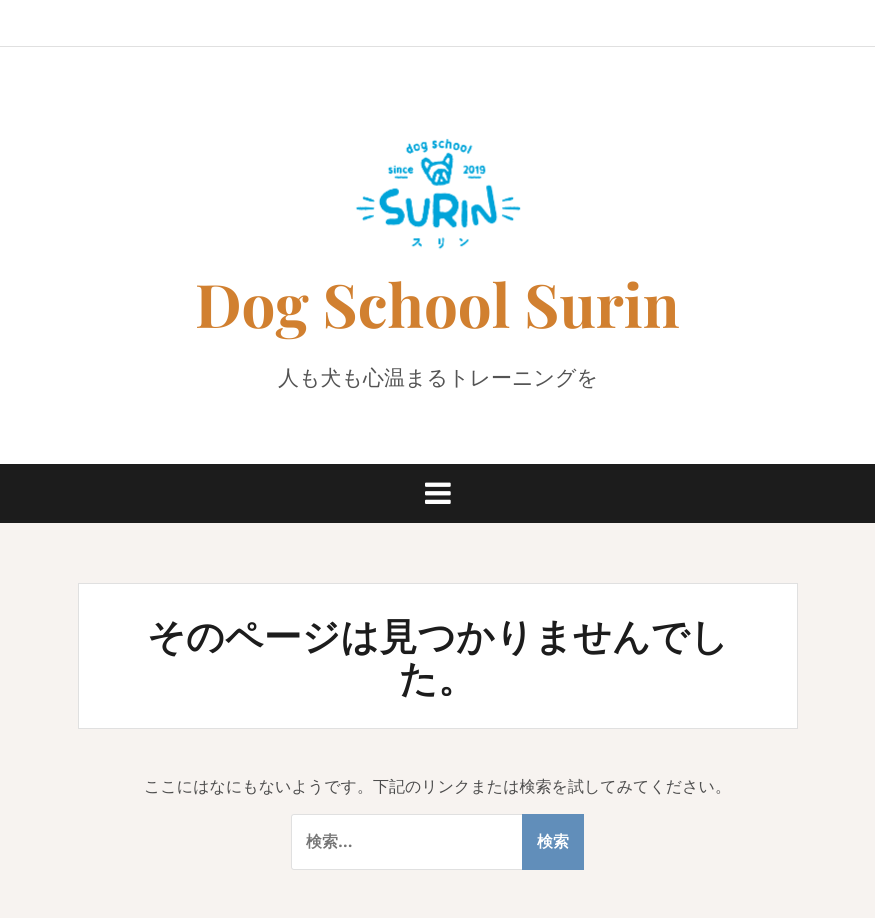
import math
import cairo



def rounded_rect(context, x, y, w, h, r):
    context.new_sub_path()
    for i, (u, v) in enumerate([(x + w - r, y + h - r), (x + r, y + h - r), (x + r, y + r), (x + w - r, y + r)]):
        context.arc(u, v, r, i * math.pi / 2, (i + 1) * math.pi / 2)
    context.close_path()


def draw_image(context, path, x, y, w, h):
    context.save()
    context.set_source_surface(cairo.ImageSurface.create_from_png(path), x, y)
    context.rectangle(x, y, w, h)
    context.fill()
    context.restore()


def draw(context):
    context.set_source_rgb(247 / 255, 243 / 255, 240 / 255)
    context.paint()
    context.set_source_rgb(1, 1, 1)
    context.rectangle(0, 0, 875, 464)
    context.fill()
    context.set_source_rgb(224 / 255, 224 / 255, 224 / 255)
    context.rectangle(0, 46, 875, 1)
    context.fill()
    draw_image(context, "images/1.png", 355, 138, 166, 112)
    context.set_source_rgb(28 / 255, 28 / 255, 28 / 255)
    context.rectangle(0, 464, 875, 59)
    context.fill()
    draw_image(context, "images/2.png", 425, 482, 26, 22)
    context.set_source_rgb(1, 1, 1)
    context.rectangle(78.5, 583.5, 719, 145)
    context.fill_preserve()
    context.set_source_rgb(224 / 255, 224 / 255, 224 / 255)
    context.set_line_width(1)
    context.stroke()
    context.set_source_rgb(1, 1, 1)
    rounded_rect(context, 291.5, 814.5, 255, 55, 2.5)
    context.fill_preserve()
    context.set_source_rgb(224 / 255, 224 / 255, 224 / 255)
    context.stroke()
    context.set_source_rgb(97 / 255, 142 / 255, 186 / 255)
    context.rectangle(522, 814, 62, 56)
    context.fill()
    context.select_font_face("Playfair Display", cairo.FontSlant.NORMAL, cairo.FontWeight.BOLD)
    context.set_font_size(60)
    context.set_source_rgb(209 / 255, 128 / 255, 48 / 255)
    context.move_to(195, 328)
    context.show_text("Dog School Surin")
    context.select_font_face("WenQuanYi Zen Hei Medium")
    context.set_font_size(21)
    context.set_source_rgb(84 / 255, 84 / 255, 84 / 255)
    context.move_to(278, 385)
    context.show_text("人も犬も心温まるトレーニングを")
    context.select_font_face("WenQuanYi Zen Hei", cairo.FontSlant.NORMAL, cairo.FontWeight.BOLD)
    context.set_font_size(38)
    context.set_source_rgb(28 / 255, 28 / 255, 28 / 255)
    context.move_to(147, 650)
    context.show_text("そのページは見つかりませんでし")
    context.move_to(399, 692)
    context.show_text("た。")
    context.select_font_face("WenQuanYi Zen Hei Medium")
    context.set_font_size(16)
    context.set_source_rgb(76 / 255, 76 / 255, 76 / 255)
    context.move_to(144, 792)
    context.show_text("ここにはなにもないようです。下記のリンクまたは検索を試してみてください。")
    context.select_font_face("WenQuanYi Zen Hei", cairo.FontSlant.NORMAL, cairo.FontWeight.BOLD)
    context.set_source_rgb(117 / 255, 117 / 255, 117 / 255)
    context.move_to(306, 847)
    context.show_text("検索")
    context.select_font_face("Noto Serif", cairo.FontSlant.NORMAL, cairo.FontWeight.BOLD)
    context.move_to(338, 847)
    context.show_text("…")
    context.select_font_face("WenQuanYi Zen Hei", cairo.FontSlant.NORMAL, cairo.FontWeight.BOLD)
    context.set_source_rgb(1, 1, 1)
    context.move_to(537, 847)
    context.show_text("検索")


surface = cairo.ImageSurface(cairo.Format.RGB24, 875, 918)
context = cairo.Context(surface)
options = cairo.FontOptions()
options.set_hint_metrics(cairo.HintMetrics.OFF)
options.set_hint_style(cairo.HintStyle.NONE)
context.set_font_options(options)
context.set_miter_limit(4)
draw(context)
surface.write_to_png("out.png")
